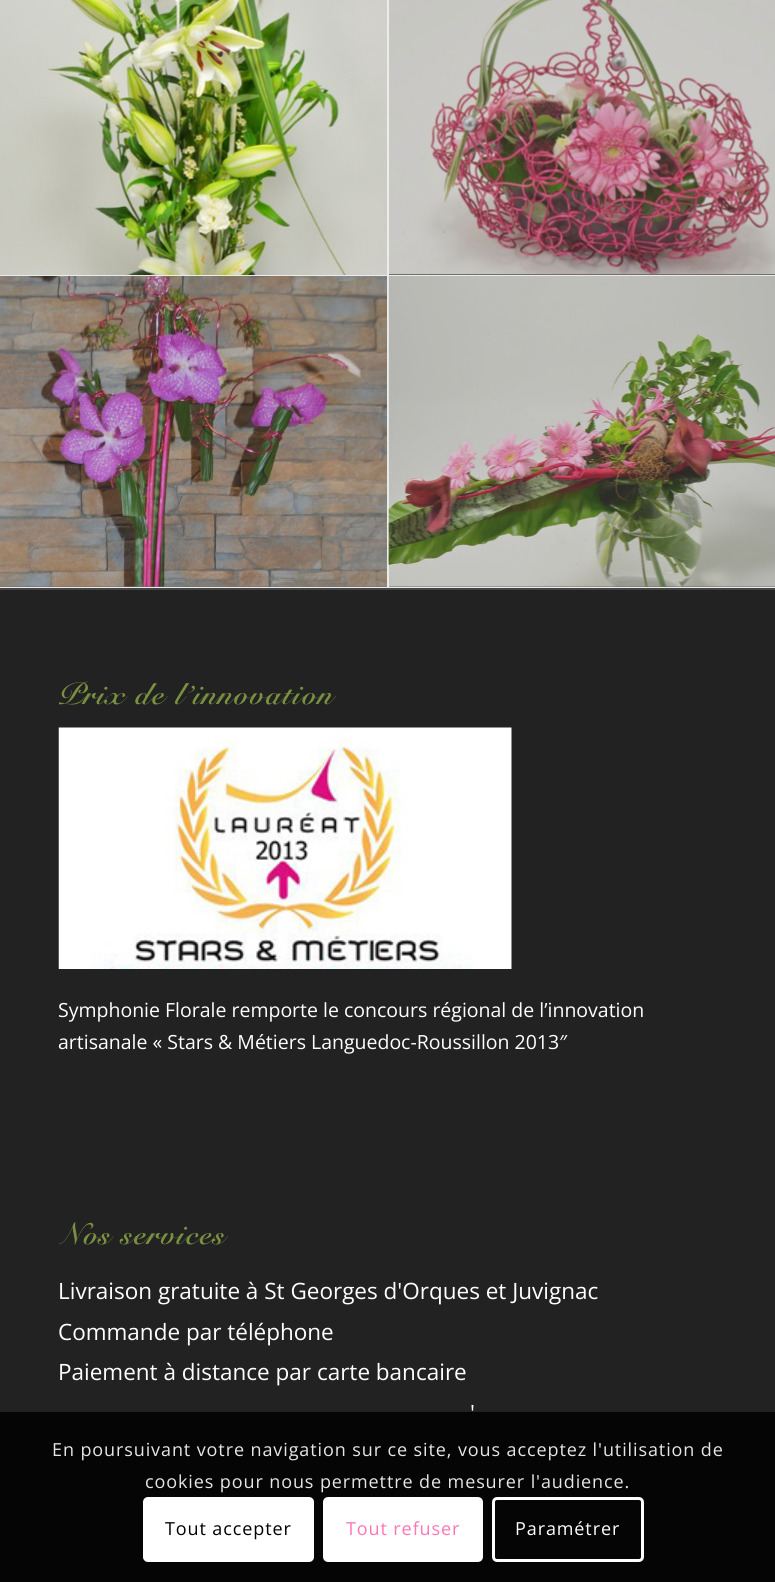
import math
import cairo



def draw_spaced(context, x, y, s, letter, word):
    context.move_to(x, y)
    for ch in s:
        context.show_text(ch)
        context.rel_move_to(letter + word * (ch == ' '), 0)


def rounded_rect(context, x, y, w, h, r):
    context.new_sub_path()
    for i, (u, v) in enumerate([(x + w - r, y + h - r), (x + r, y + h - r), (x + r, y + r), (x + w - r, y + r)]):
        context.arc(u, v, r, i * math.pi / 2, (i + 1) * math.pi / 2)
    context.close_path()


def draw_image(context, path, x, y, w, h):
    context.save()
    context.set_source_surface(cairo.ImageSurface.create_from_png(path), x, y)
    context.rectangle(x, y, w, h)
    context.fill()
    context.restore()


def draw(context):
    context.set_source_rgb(235 / 255, 235 / 255, 235 / 255)
    context.paint()
    draw_image(context, "images/1.png", 0, 0, 387, 275)
    context.set_source_rgb(111 / 255, 110 / 255, 106 / 255)
    context.rectangle(389, 0, 386, 275)
    context.fill()
    draw_image(context, "images/2.png", 388, 0, 387, 274)
    context.rectangle(0, 276, 387, 311)
    context.fill()
    draw_image(context, "images/3.png", 0, 276, 387, 311)
    context.rectangle(389, 276, 386, 311)
    context.fill()
    draw_image(context, "images/4.png", 388, 276, 387, 311)
    context.set_source_rgb(34 / 255, 34 / 255, 34 / 255)
    context.rectangle(0, 590, 775, 992)
    context.fill()
    context.set_source_rgb(68 / 255, 68 / 255, 68 / 255)
    context.rectangle(0, 588, 775, 2)
    context.fill()
    draw_image(context, "images/5.png", 58, 727, 454, 242)
    context.set_source_rgba(0, 0, 0, 0.85)
    context.rectangle(0, 1412, 775, 170)
    context.fill()
    context.set_source_rgb(1, 1, 1)
    rounded_rect(context, 143, 1497, 171, 65, 5)
    context.fill()
    rounded_rect(context, 324.5, 1498.5, 157, 62, 3.5)
    context.fill_preserve()
    context.set_line_width(3)
    context.stroke()
    rounded_rect(context, 493.5, 1498.5, 149, 62, 3.5)
    context.stroke()
    context.save()
    context.rectangle(59, 657, 658, 419)
    context.clip()
    context.select_font_face("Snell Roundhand", cairo.FontSlant.ITALIC, cairo.FontWeight.BOLD)
    context.set_font_size(30)
    context.set_source_rgb(121 / 255, 145 / 255, 64 / 255)
    draw_spaced(context, 58, 704, "Prix de l’innovation", 1.5, 0)
    context.restore()
    context.select_font_face("Open Sans")
    context.set_font_size(19.5)
    context.move_to(58, 1017)
    context.show_text("Symphonie Florale remporte le concours régional de l’innovation")
    context.move_to(58, 1049)
    context.show_text("artisanale « Stars & Métiers Languedoc-Roussillon 2013″")
    context.save()
    context.rectangle(59, 1196, 658, 277)
    context.clip()
    context.select_font_face("Snell Roundhand", cairo.FontSlant.ITALIC, cairo.FontWeight.BOLD)
    context.set_font_size(30)
    context.set_source_rgb(121 / 255, 145 / 255, 64 / 255)
    draw_spaced(context, 58, 1244, "Nos services", 1.5, 0)
    context.restore()
    context.set_font_size(22.5)
    context.move_to(58, 1299)
    context.show_text("Livraison gratuite à St Georges d'Orques et Juvignac")
    context.move_to(58, 1340)
    context.show_text("Commande par téléphone")
    context.move_to(58, 1380)
    context.show_text("Paiement à distance par carte bancaire")
    context.move_to(470, 1421)
    context.show_text("'")
    context.set_font_size(18)
    context.set_source_rgb(230 / 255, 230 / 255, 230 / 255)
    draw_spaced(context, 52, 1456, "En poursuivant votre navigation sur ce site, vous acceptez l'utilisation de", 0.9, 0)
    draw_spaced(context, 145, 1488, "cookies pour nous permettre de mesurer l'audience.", 0.9, 0)
    context.set_source_rgb(0, 0, 0)
    draw_spaced(context, 165, 1535, "Tout accepter", 0.9, 0)
    context.set_source_rgb(1, 117 / 255, 181 / 255)
    draw_spaced(context, 346, 1535, "Tout refuser", 0.9, 0)
    context.set_source_rgb(1, 1, 1)
    draw_spaced(context, 515, 1535, "Paramétrer", 0.9, 0)


surface = cairo.ImageSurface(cairo.Format.RGB24, 775, 1582)
context = cairo.Context(surface)
options = cairo.FontOptions()
options.set_hint_metrics(cairo.HintMetrics.OFF)
options.set_hint_style(cairo.HintStyle.NONE)
context.set_font_options(options)
context.set_miter_limit(4)
draw(context)
surface.write_to_png("out.png")
